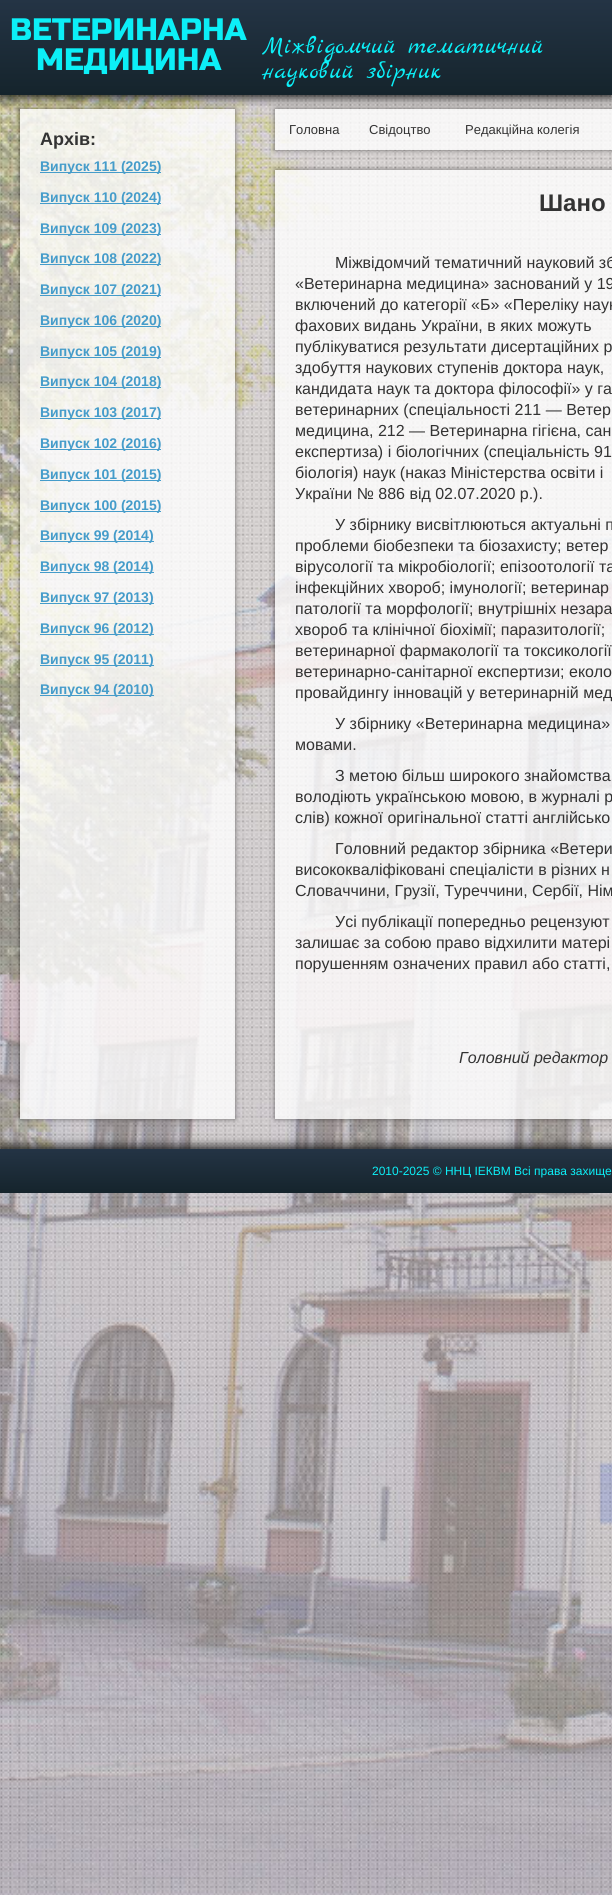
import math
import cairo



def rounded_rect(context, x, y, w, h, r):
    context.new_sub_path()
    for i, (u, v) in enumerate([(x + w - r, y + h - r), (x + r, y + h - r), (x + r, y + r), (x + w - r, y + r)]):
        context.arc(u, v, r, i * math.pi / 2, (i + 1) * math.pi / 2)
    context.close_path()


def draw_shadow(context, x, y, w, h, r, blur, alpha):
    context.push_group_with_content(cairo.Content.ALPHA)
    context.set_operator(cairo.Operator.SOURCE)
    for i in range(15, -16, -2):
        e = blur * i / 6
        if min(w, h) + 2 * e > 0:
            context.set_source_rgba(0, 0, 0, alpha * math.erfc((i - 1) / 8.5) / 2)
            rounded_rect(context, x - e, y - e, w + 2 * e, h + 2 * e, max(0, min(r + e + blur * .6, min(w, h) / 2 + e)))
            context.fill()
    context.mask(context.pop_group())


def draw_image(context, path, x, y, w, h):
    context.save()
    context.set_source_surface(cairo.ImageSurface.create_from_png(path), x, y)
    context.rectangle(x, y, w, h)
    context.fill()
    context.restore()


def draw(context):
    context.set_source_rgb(1, 1, 1)
    context.paint()
    draw_image(context, "images/1.png", 0, 95, 612, 1800)
    context.save()
    context.set_fill_rule(cairo.FillRule.EVEN_ODD)
    context.new_path()
    context.move_to(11, 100)
    context.line_to(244, 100)
    context.line_to(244, 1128)
    context.line_to(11, 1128)
    context.close_path()
    context.move_to(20, 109)
    context.line_to(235, 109)
    context.line_to(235, 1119)
    context.line_to(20, 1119)
    context.close_path()
    context.clip()
    context.set_source_rgb(0, 0, 0)
    draw_shadow(context, 20, 109, 215, 1010, 0, 2.5, 0.5)
    context.restore()
    context.set_source_rgba(1, 1, 1, 0.8)
    context.rectangle(20, 109, 215, 1010)
    context.fill()
    context.save()
    context.set_fill_rule(cairo.FillRule.EVEN_ODD)
    context.new_path()
    context.move_to(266, 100)
    context.line_to(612, 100)
    context.line_to(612, 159)
    context.line_to(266, 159)
    context.close_path()
    context.move_to(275, 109)
    context.line_to(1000, 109)
    context.line_to(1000, 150)
    context.line_to(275, 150)
    context.close_path()
    context.clip()
    context.set_source_rgb(0, 0, 0)
    draw_shadow(context, 275, 109, 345, 41, 0, 2.5, 0.5)
    context.restore()
    context.rectangle(275, 109, 79, 41)
    context.fill()
    context.rectangle(354, 109, 92, 41)
    context.fill()
    context.rectangle(446, 109, 153, 41)
    context.fill()
    context.rectangle(599, 109, 13, 41)
    context.fill()
    context.set_source_rgb(0, 0, 0)
    draw_shadow(context, 0, 3, 612, 95, 0, 5, 0.8)
    gradient = cairo.LinearGradient(306, 0, 306, 95)
    gradient.add_color_stop_rgba(0, 36 / 255, 52 / 255, 69 / 255, 1)
    gradient.add_color_stop_rgba(1, 21 / 255, 36 / 255, 44 / 255, 1)
    context.set_source(gradient)
    context.rectangle(0, 0, 612, 95)
    context.fill()
    context.set_source_rgb(69 / 255, 156 / 255, 202 / 255)
    context.rectangle(40, 172, 121, 1)
    context.fill()
    context.rectangle(40, 203, 121, 1)
    context.fill()
    context.rectangle(40, 234, 121, 1)
    context.fill()
    context.rectangle(40, 264, 121, 1)
    context.fill()
    context.rectangle(40, 295, 121, 1)
    context.fill()
    context.rectangle(40, 326, 121, 1)
    context.fill()
    context.rectangle(40, 357, 121, 1)
    context.fill()
    context.rectangle(40, 387, 121, 1)
    context.fill()
    context.rectangle(40, 418, 121, 1)
    context.fill()
    context.rectangle(40, 449, 121, 1)
    context.fill()
    context.rectangle(40, 480, 121, 1)
    context.fill()
    context.rectangle(40, 511, 121, 1)
    context.fill()
    context.rectangle(40, 541, 114, 1)
    context.fill()
    context.rectangle(40, 572, 114, 1)
    context.fill()
    context.rectangle(40, 603, 114, 1)
    context.fill()
    context.rectangle(40, 634, 114, 1)
    context.fill()
    context.rectangle(40, 665, 114, 1)
    context.fill()
    context.rectangle(40, 695, 114, 1)
    context.fill()
    context.save()
    context.set_fill_rule(cairo.FillRule.EVEN_ODD)
    context.new_path()
    context.move_to(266, 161)
    context.line_to(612, 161)
    context.line_to(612, 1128)
    context.line_to(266, 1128)
    context.close_path()
    context.move_to(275, 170)
    context.line_to(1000, 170)
    context.line_to(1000, 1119)
    context.line_to(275, 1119)
    context.close_path()
    context.clip()
    context.set_source_rgb(0, 0, 0)
    draw_shadow(context, 275, 170, 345, 949, 0, 2.5, 0.5)
    context.restore()
    context.set_source_rgba(1, 1, 1, 0.8)
    context.rectangle(275, 170, 337, 949)
    context.fill()
    context.save()
    context.rectangle(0, 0, 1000, 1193)
    context.clip()
    context.set_source_rgb(0, 0, 0)
    draw_shadow(context, 0, 1146, 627, 44, 0, 5, 0.8)
    context.restore()
    gradient = cairo.LinearGradient(500, 1149, 500, 1193)
    gradient.add_color_stop_rgba(0, 36 / 255, 52 / 255, 69 / 255, 1)
    gradient.add_color_stop_rgba(1, 21 / 255, 36 / 255, 44 / 255, 1)
    context.set_source(gradient)
    context.rectangle(0, 1149, 612, 44)
    context.fill()
    context.select_font_face("Russo One")
    context.set_font_size(31)
    context.set_source_rgb(12 / 255, 239 / 255, 247 / 255)
    context.move_to(10, 40)
    context.show_text("ВЕТЕРИНАРНА")
    context.move_to(36, 70)
    context.show_text("МЕДИЦИНА")
    context.select_font_face("Marck Script")
    context.set_font_size(25)
    context.move_to(262, 53)
    context.show_text("Міжвідомчий тематичний")
    context.move_to(262, 78)
    context.show_text("науковий збірник")
    context.select_font_face("Liberation Sans", cairo.FontSlant.NORMAL, cairo.FontWeight.BOLD)
    context.set_font_size(18)
    context.set_source_rgb(51 / 255, 51 / 255, 51 / 255)
    context.move_to(40, 145)
    context.show_text("Архів:")
    context.set_font_size(14)
    context.set_source_rgb(69 / 255, 156 / 255, 202 / 255)
    context.move_to(40, 171)
    context.show_text("Випуск 111 (2025)")
    context.move_to(40, 202)
    context.show_text("Випуск 110 (2024)")
    context.move_to(40, 233)
    context.show_text("Випуск 109 (2023)")
    context.move_to(40, 263)
    context.show_text("Випуск 108 (2022)")
    context.move_to(40, 294)
    context.show_text("Випуск 107 (2021)")
    context.move_to(40, 325)
    context.show_text("Випуск 106 (2020)")
    context.move_to(40, 356)
    context.show_text("Випуск 105 (2019)")
    context.move_to(40, 386)
    context.show_text("Випуск 104 (2018)")
    context.move_to(40, 417)
    context.show_text("Випуск 103 (2017)")
    context.move_to(40, 448)
    context.show_text("Випуск 102 (2016)")
    context.move_to(40, 479)
    context.show_text("Випуск 101 (2015)")
    context.move_to(40, 510)
    context.show_text("Випуск 100 (2015)")
    context.move_to(40, 540)
    context.show_text("Випуск 99 (2014)")
    context.move_to(40, 571)
    context.show_text("Випуск 98 (2014)")
    context.move_to(40, 602)
    context.show_text("Випуск 97 (2013)")
    context.move_to(40, 633)
    context.show_text("Випуск 96 (2012)")
    context.move_to(40, 664)
    context.show_text("Випуск 95 (2011)")
    context.move_to(40, 694)
    context.show_text("Випуск 94 (2010)")
    context.select_font_face("Liberation Sans")
    context.set_font_size(13)
    context.set_source_rgb(51 / 255, 51 / 255, 51 / 255)
    context.move_to(289, 134)
    context.show_text("Головна")
    context.move_to(369, 134)
    context.show_text("Свідоцтво")
    context.move_to(465, 134)
    context.show_text("Редакційна колегія")
    context.select_font_face("Liberation Sans", cairo.FontSlant.NORMAL, cairo.FontWeight.BOLD)
    context.set_font_size(24)
    context.move_to(539, 211)
    context.show_text("Шано")
    context.select_font_face("Liberation Sans")
    context.set_font_size(16)
    context.move_to(335, 268)
    context.show_text("Міжвідомчий тематичний науковий зб")
    context.move_to(295, 289)
    context.show_text("«Ветеринарна медицина» заснований у 19")
    context.move_to(295, 310)
    context.show_text("включений до категорії «Б» «Переліку наук")
    context.move_to(295, 331)
    context.show_text("фахових видань України, в яких можуть")
    context.move_to(295, 352)
    context.show_text("публікуватися результати дисертаційних р")
    context.move_to(295, 373)
    context.show_text("здобуття наукових ступенів доктора наук,")
    context.move_to(295, 394)
    context.show_text("кандидата наук та доктора філософії» у га")
    context.move_to(295, 415)
    context.show_text("ветеринарних (спеціальності 211 — Ветер")
    context.move_to(295, 436)
    context.show_text("медицина, 212 — Ветеринарна гігієна, сан")
    context.move_to(295, 457)
    context.show_text("експертиза) і біологічних (спеціальність 91")
    context.move_to(295, 478)
    context.show_text("біологія) наук (наказ Міністерства освіти і")
    context.move_to(295, 499)
    context.show_text("України № 886 від 02.07.2020 р.).")
    context.move_to(335, 530)
    context.show_text("У збірнику висвітлюються актуальні п")
    context.move_to(295, 551)
    context.show_text("проблеми біобезпеки та біозахисту; ветер")
    context.move_to(295, 572)
    context.show_text("вірусології та мікробіології; епізоотології та")
    context.move_to(295, 593)
    context.show_text("інфекційних хвороб; імунології; ветеринар")
    context.move_to(295, 614)
    context.show_text("патології та морфології; внутрішніх незара")
    context.move_to(295, 635)
    context.show_text("хвороб та клінічної біохімії; паразитології;")
    context.move_to(295, 656)
    context.show_text("ветеринарної фармакології та токсикології")
    context.move_to(295, 677)
    context.show_text("ветеринарно-санітарної експертизи; еколо")
    context.move_to(295, 698)
    context.show_text("провайдингу інновацій у ветеринарній мед")
    context.move_to(335, 729)
    context.show_text("У збірнику «Ветеринарна медицина»")
    context.move_to(295, 750)
    context.show_text("мовами.")
    context.move_to(335, 781)
    context.show_text("З метою більш широкого знайомства")
    context.move_to(295, 802)
    context.show_text("володіють українською мовою, в журналі р")
    context.move_to(295, 823)
    context.show_text("слів) кожної оригінальної статті англійсько")
    context.move_to(335, 854)
    context.show_text("Головний редактор збірника «Ветери")
    context.move_to(295, 875)
    context.show_text("висококваліфіковані спеціалісти в різних н")
    context.move_to(295, 896)
    context.show_text("Словаччини, Грузії, Туреччини, Сербії, Нім")
    context.move_to(335, 927)
    context.show_text("Усі публікації попередньо рецензуют")
    context.move_to(295, 948)
    context.show_text("залишає за собою право відхилити матері")
    context.move_to(295, 969)
    context.show_text("порушенням означених правил або статті,")
    context.select_font_face("Liberation Sans", cairo.FontSlant.ITALIC)
    context.move_to(459, 1063)
    context.show_text("Головний редактор")
    context.select_font_face("Liberation Sans")
    context.set_font_size(12)
    context.set_source_rgb(12 / 255, 239 / 255, 247 / 255)
    context.move_to(372, 1175)
    context.show_text("2010-2025 © ННЦ ІЕКВМ Всі права захище")


surface = cairo.ImageSurface(cairo.Format.RGB24, 612, 1895)
context = cairo.Context(surface)
options = cairo.FontOptions()
options.set_hint_metrics(cairo.HintMetrics.OFF)
options.set_hint_style(cairo.HintStyle.NONE)
context.set_font_options(options)
context.set_miter_limit(4)
draw(context)
surface.write_to_png("out.png")
